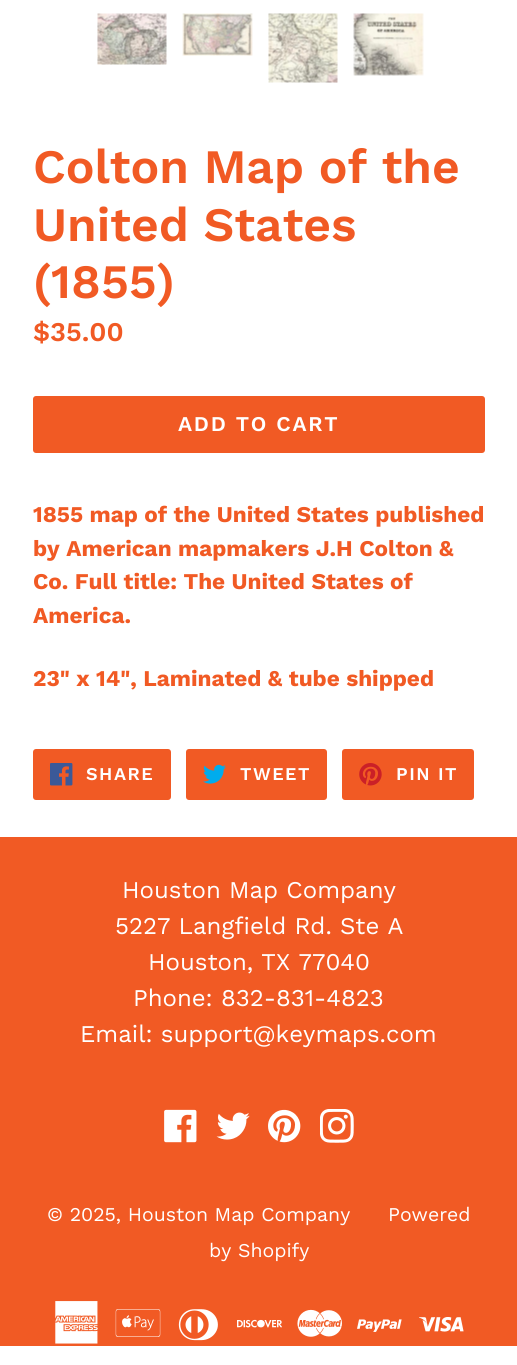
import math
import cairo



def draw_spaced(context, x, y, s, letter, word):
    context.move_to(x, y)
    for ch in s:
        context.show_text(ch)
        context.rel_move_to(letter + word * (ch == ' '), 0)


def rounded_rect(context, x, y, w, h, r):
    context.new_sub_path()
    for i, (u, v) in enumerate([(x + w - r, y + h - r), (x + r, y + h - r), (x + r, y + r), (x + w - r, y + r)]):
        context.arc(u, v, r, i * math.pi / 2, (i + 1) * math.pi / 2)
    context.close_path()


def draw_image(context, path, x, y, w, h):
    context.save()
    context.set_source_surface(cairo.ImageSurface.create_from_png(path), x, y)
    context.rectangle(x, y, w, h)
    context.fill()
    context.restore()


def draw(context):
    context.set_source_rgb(1, 1, 1)
    context.paint()
    draw_image(context, "images/1.png", 97, 13, 70, 52)
    draw_image(context, "images/2.png", 182, 13, 71, 43)
    draw_image(context, "images/3.png", 268, 13, 70, 70)
    draw_image(context, "images/4.png", 353, 13, 71, 63)
    context.set_source_rgb(241 / 255, 90 / 255, 36 / 255)
    rounded_rect(context, 33, 396, 452, 57, 3)
    context.fill()
    rounded_rect(context, 34, 750, 136, 49, 2)
    context.fill_preserve()
    context.stroke()
    draw_image(context, "images/5.png", 50, 763, 23, 23)
    rounded_rect(context, 187, 750, 139, 49, 2)
    context.fill_preserve()
    context.stroke()
    draw_image(context, "images/6.png", 203, 764, 23, 20)
    rounded_rect(context, 343, 750, 130, 49, 2)
    context.fill_preserve()
    context.stroke()
    draw_image(context, "images/7.png", 359, 763, 23, 23)
    context.rectangle(0, 837, 517, 509)
    context.fill()
    draw_image(context, "images/8.png", 164, 1109, 33, 34)
    draw_image(context, "images/9.png", 216, 1112, 34, 28)
    draw_image(context, "images/10.png", 268, 1109, 33, 34)
    draw_image(context, "images/11.png", 320, 1109, 34, 34)
    draw_image(context, "images/12.png", 55, 1301, 43, 43)
    draw_image(context, "images/13.png", 115, 1309, 46, 28)
    draw_image(context, "images/14.png", 178, 1309, 40, 32)
    draw_image(context, "images/15.png", 237, 1319, 45, 9)
    draw_image(context, "images/16.png", 297, 1309, 45, 28)
    draw_image(context, "images/17.png", 357, 1319, 45, 13)
    draw_image(context, "images/18.png", 419, 1317, 45, 15)
    context.select_font_face("Work Sans SemiBold")
    context.set_font_size(48)
    context.move_to(33, 183)
    context.show_text("Colton Map of the")
    context.move_to(33, 241)
    context.show_text("United States")
    context.move_to(33, 298)
    context.show_text("(1855)")
    context.set_font_size(27)
    context.move_to(33, 341)
    context.show_text("$35.00")
    context.set_font_size(21)
    context.set_source_rgb(1, 1, 1)
    draw_spaced(context, 178, 431, "ADD TO CART", 1.75, 0)
    context.select_font_face("Work Sans", cairo.FontSlant.NORMAL, cairo.FontWeight.BOLD)
    context.set_font_size(22.5)
    context.set_source_rgb(241 / 255, 90 / 255, 36 / 255)
    context.move_to(33, 522)
    context.show_text("1855 map of the United States published")
    context.move_to(33, 556)
    context.show_text("by American mapmakers J.H Colton &")
    context.move_to(33, 589)
    context.show_text("Co. Full title: The United States of")
    context.move_to(33, 623)
    context.show_text("America.")
    context.move_to(33, 686)
    context.show_text("23\" x 14\", Laminated & tube shipped")
    context.select_font_face("Work Sans SemiBold")
    context.set_font_size(18)
    context.set_source_rgb(1, 1, 1)
    draw_spaced(context, 86, 780, "SHARE", 1.5, 0)
    draw_spaced(context, 240, 780, "TWEET", 1.5, 0)
    draw_spaced(context, 396, 780, "PIN IT", 1.5, 0)
    context.select_font_face("Work Sans")
    context.set_font_size(24)
    context.move_to(122, 898)
    context.show_text("Houston Map Company")
    context.move_to(115, 934)
    context.show_text("5227 Langfield Rd. Ste A")
    context.move_to(148, 970)
    context.show_text("Houston, TX 77040")
    context.move_to(133, 1006)
    context.show_text("Phone: 832-831-4823")
    context.move_to(80, 1042)
    context.show_text("Email: support@keymaps.com")
    context.set_font_size(19.5)
    context.move_to(47, 1221)
    context.show_text("© 2025, Houston Map Company")
    context.move_to(388, 1221)
    context.show_text("Powered")
    context.move_to(209, 1257)
    context.show_text("by Shopify")


surface = cairo.ImageSurface(cairo.Format.RGB24, 517, 1365)
context = cairo.Context(surface)
options = cairo.FontOptions()
options.set_hint_metrics(cairo.HintMetrics.OFF)
options.set_hint_style(cairo.HintStyle.NONE)
context.set_font_options(options)
context.set_miter_limit(4)
draw(context)
surface.write_to_png("out.png")
